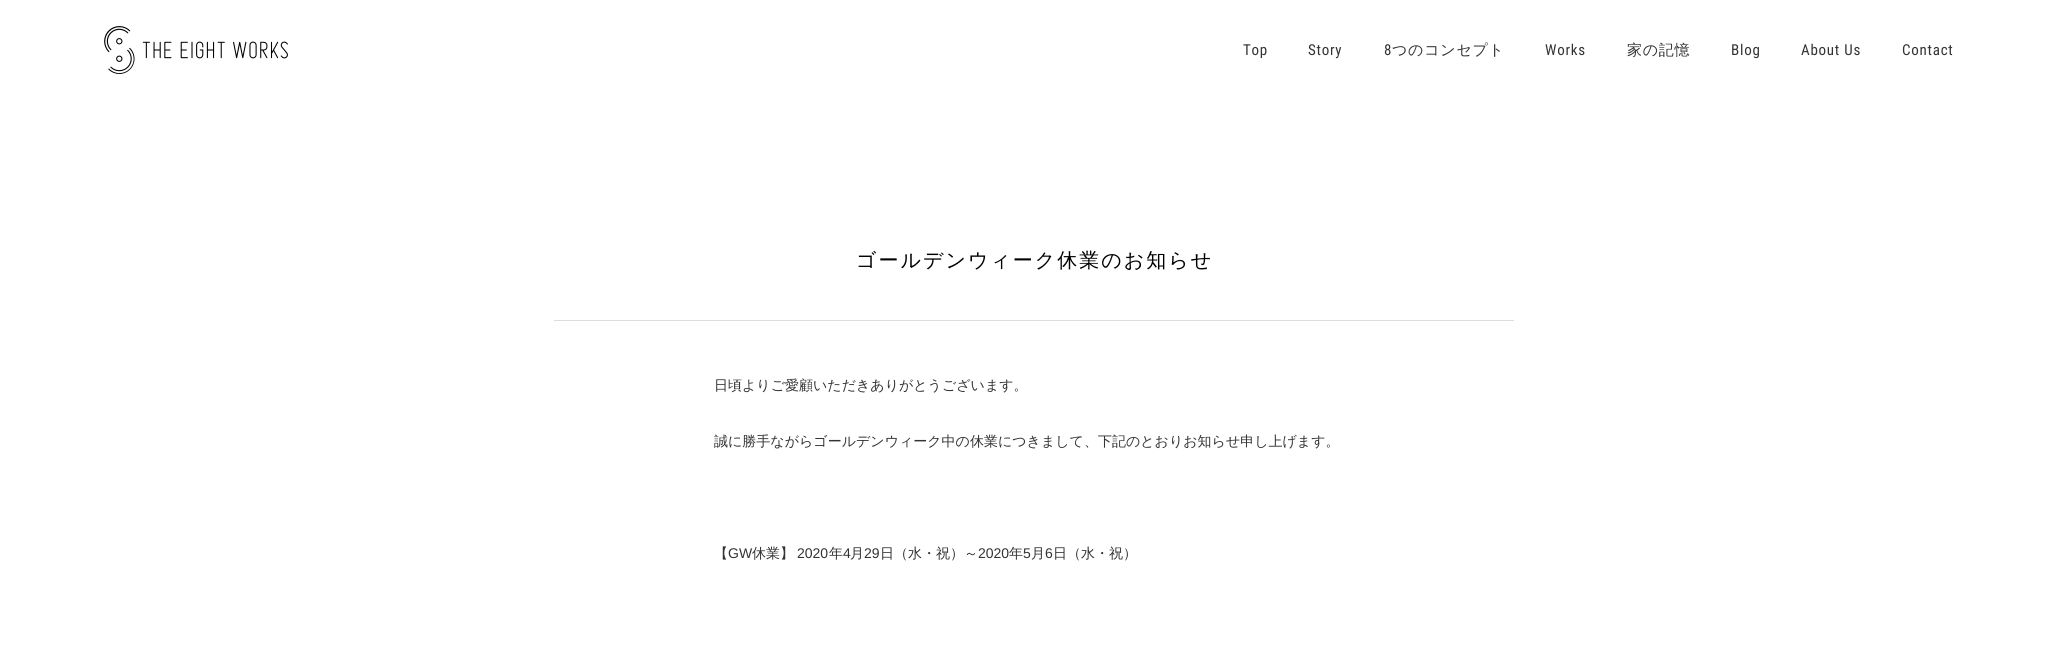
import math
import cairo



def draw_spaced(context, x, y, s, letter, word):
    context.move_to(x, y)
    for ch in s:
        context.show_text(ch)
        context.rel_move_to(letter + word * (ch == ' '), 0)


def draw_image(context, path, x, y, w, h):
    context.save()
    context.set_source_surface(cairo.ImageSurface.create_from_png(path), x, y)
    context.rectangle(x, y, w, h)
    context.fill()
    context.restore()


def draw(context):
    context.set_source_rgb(1, 1, 1)
    context.paint()
    draw_image(context, "images/1.png", 104, 26, 184, 48)
    context.set_source_rgb(221 / 255, 221 / 255, 221 / 255)
    context.rectangle(554, 320, 960, 1)
    context.fill()
    context.select_font_face("Roboto Condensed")
    context.set_font_size(15)
    context.set_source_rgb(51 / 255, 51 / 255, 51 / 255)
    draw_spaced(context, 1243, 55, "Top", 0.75, 0)
    draw_spaced(context, 1308, 55, "Story", 0.75, 0)
    draw_spaced(context, 1384, 55, "8", 0.75, 0)
    context.select_font_face("WenQuanYi Zen Hei Medium")
    draw_spaced(context, 1392, 55, "つのコンセプト", 0.75, 0)
    context.select_font_face("Roboto Condensed")
    draw_spaced(context, 1545, 55, "Works", 0.75, 0)
    context.select_font_face("WenQuanYi Zen Hei Medium")
    draw_spaced(context, 1627, 55, "家の記憶", 0.75, 0)
    context.select_font_face("Roboto Condensed")
    draw_spaced(context, 1731, 55, "Blog", 0.75, 0)
    draw_spaced(context, 1801, 55, "About Us", 0.75, 0)
    draw_spaced(context, 1902, 55, "Contact", 0.75, 0)
    context.select_font_face("WenQuanYi Zen Hei Medium")
    context.set_font_size(20)
    context.set_source_rgb(0, 0, 0)
    draw_spaced(context, 856, 267, "ゴールデンウィーク休業のお知らせ", 2, 0)
    context.set_font_size(14)
    context.set_source_rgb(51 / 255, 51 / 255, 51 / 255)
    context.move_to(714, 390)
    context.show_text("日頃よりご愛顧いただきありがとうございます。")
    context.move_to(714, 446)
    context.show_text("誠に勝手ながらゴールデンウィーク中の休業につきまして、下記のとおりお知らせ申し上げます。")
    context.move_to(714, 558)
    context.show_text("【")
    context.select_font_face("Liberation Sans")
    context.move_to(728, 558)
    context.show_text("GW")
    context.select_font_face("WenQuanYi Zen Hei Medium")
    context.move_to(752, 558)
    context.show_text("休業】")
    context.select_font_face("Liberation Sans")
    context.move_to(797, 558)
    context.show_text("2020")
    context.select_font_face("WenQuanYi Zen Hei Medium")
    context.move_to(829, 558)
    context.show_text("年")
    context.select_font_face("Liberation Sans")
    context.move_to(843, 558)
    context.show_text("4")
    context.select_font_face("WenQuanYi Zen Hei Medium")
    context.move_to(850, 558)
    context.show_text("月")
    context.select_font_face("Liberation Sans")
    context.move_to(864, 558)
    context.show_text("29")
    context.select_font_face("WenQuanYi Zen Hei Medium")
    context.move_to(880, 558)
    context.show_text("日（水・祝）～")
    context.select_font_face("Liberation Sans")
    context.move_to(978, 558)
    context.show_text("2020")
    context.select_font_face("WenQuanYi Zen Hei Medium")
    context.move_to(1009, 558)
    context.show_text("年")
    context.select_font_face("Liberation Sans")
    context.move_to(1023, 558)
    context.show_text("5")
    context.select_font_face("WenQuanYi Zen Hei Medium")
    context.move_to(1031, 558)
    context.show_text("月")
    context.select_font_face("Liberation Sans")
    context.move_to(1045, 558)
    context.show_text("6")
    context.select_font_face("WenQuanYi Zen Hei Medium")
    context.move_to(1053, 558)
    context.show_text("日（水・祝）")


surface = cairo.ImageSurface(cairo.Format.RGB24, 2067, 655)
context = cairo.Context(surface)
options = cairo.FontOptions()
options.set_hint_metrics(cairo.HintMetrics.OFF)
options.set_hint_style(cairo.HintStyle.NONE)
context.set_font_options(options)
context.set_miter_limit(4)
draw(context)
surface.write_to_png("out.png")
